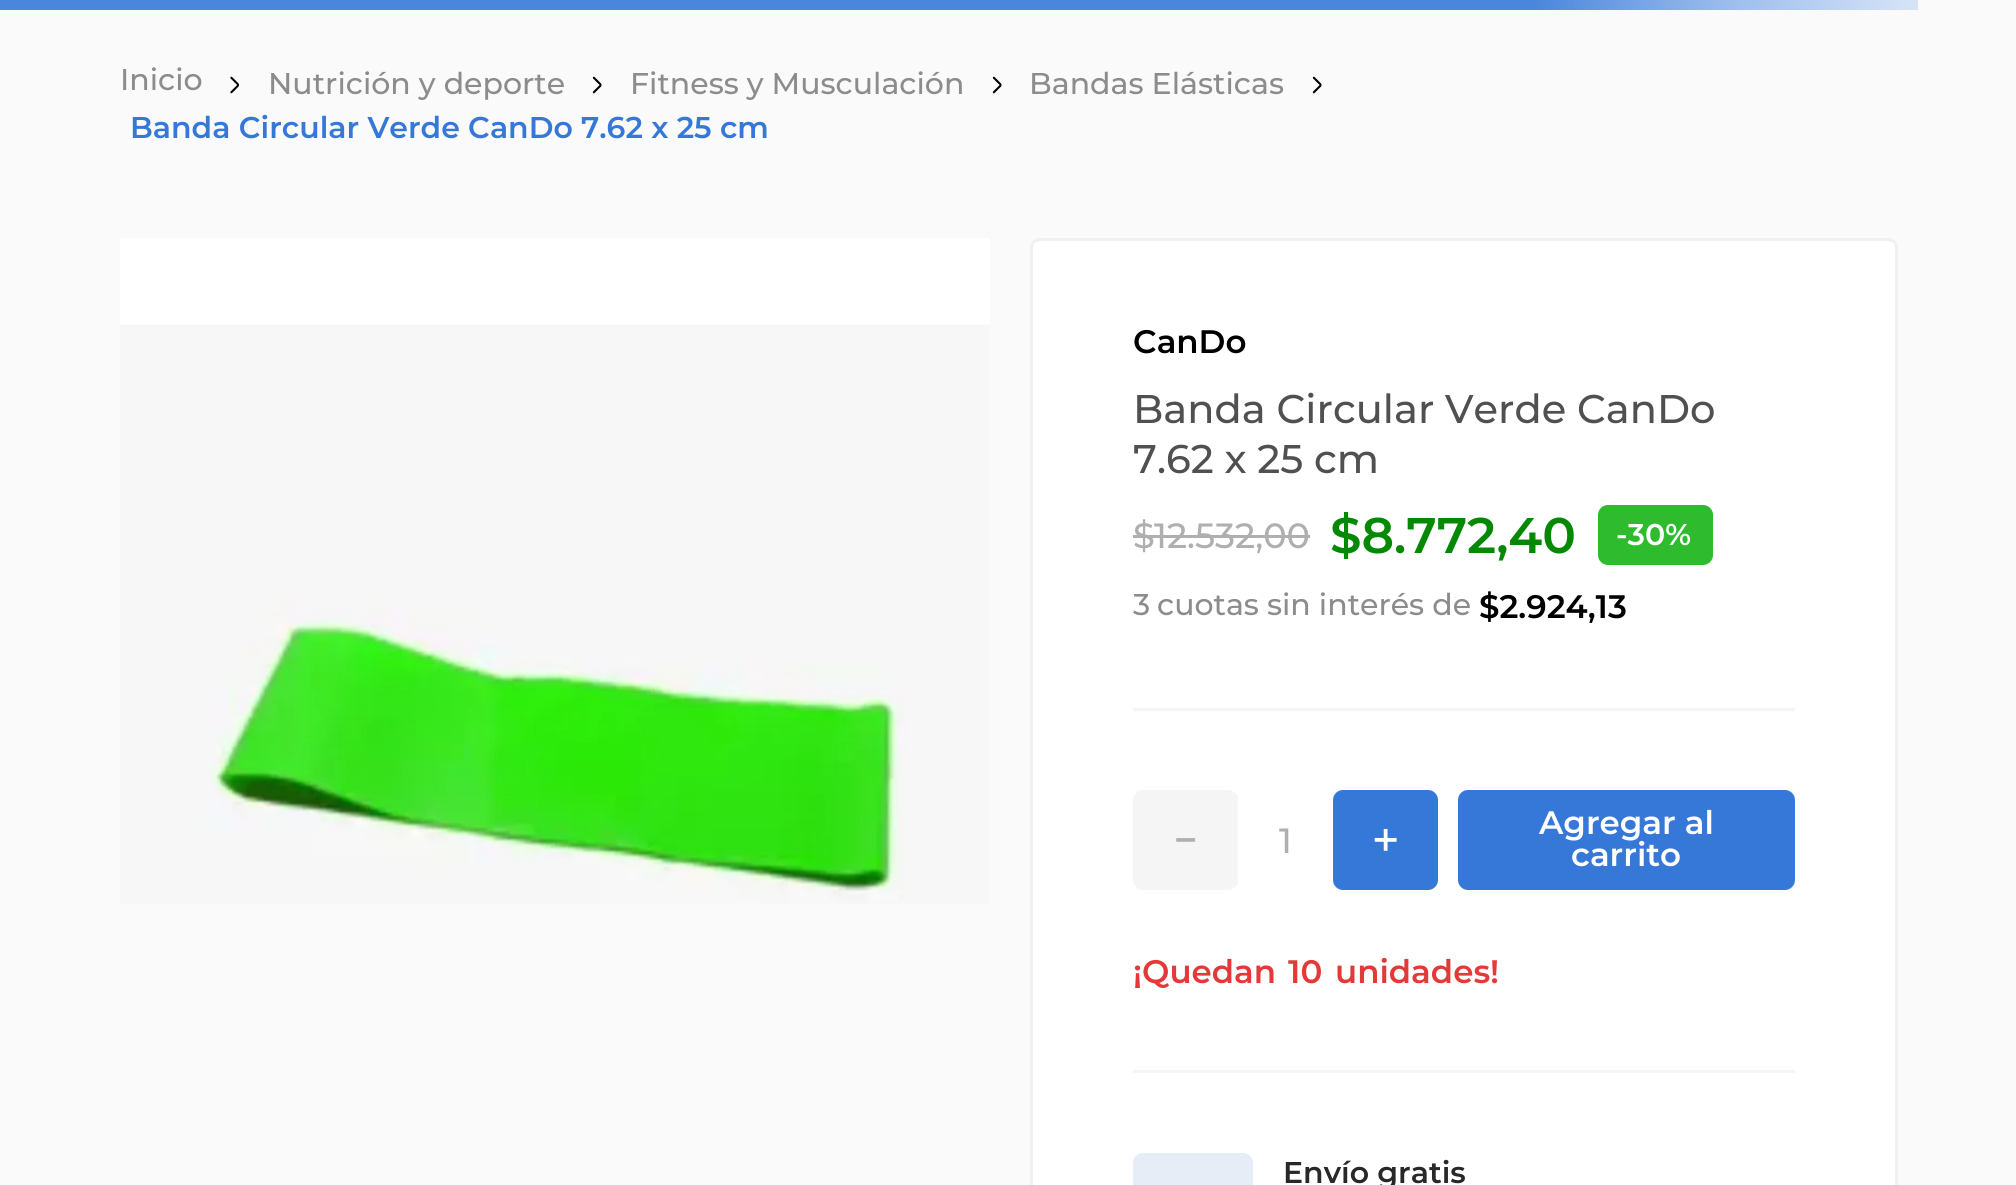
import math
import cairo



def rounded_rect(context, x, y, w, h, r):
    context.new_sub_path()
    for i, (u, v) in enumerate([(x + w - r, y + h - r), (x + r, y + h - r), (x + r, y + r), (x + w - r, y + r)]):
        context.arc(u, v, r, i * math.pi / 2, (i + 1) * math.pi / 2)
    context.close_path()


def draw_image(context, path, x, y, w, h):
    context.save()
    context.set_source_surface(cairo.ImageSurface.create_from_png(path), x, y)
    context.rectangle(x, y, w, h)
    context.fill()
    context.restore()


def draw(context):
    context.set_source_rgb(250 / 255, 250 / 255, 250 / 255)
    context.paint()
    gradient = cairo.LinearGradient(0, 5, 1917, 5)
    gradient.add_color_stop_rgba(0.8, 74 / 255, 134 / 255, 220 / 255, 1)
    gradient.add_color_stop_rgba(0.9, 155 / 255, 188 / 255, 236 / 255, 1)
    gradient.add_color_stop_rgba(1, 215 / 255, 228 / 255, 247 / 255, 1)
    context.set_source(gradient)
    context.rectangle(0, 0, 1918, 10)
    context.fill()
    draw_image(context, "images/1.png", 230, 76, 9, 18)
    draw_image(context, "images/2.png", 592, 76, 10, 18)
    draw_image(context, "images/2.png", 992, 76, 10, 18)
    draw_image(context, "images/2.png", 1312, 76, 10, 18)
    draw_image(context, "images/3.png", 120, 238, 870, 666)
    context.set_source_rgb(1, 1, 1)
    rounded_rect(context, 1031.5, 239.5, 865, 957, 8.5)
    context.fill_preserve()
    context.set_source_rgb(240 / 255, 240 / 255, 240 / 255)
    context.set_line_width(3)
    context.stroke()
    context.set_source_rgb(175 / 255, 175 / 255, 175 / 255)
    context.rectangle(1133, 535, 22, 3)
    context.fill()
    context.rectangle(1155, 535, 41, 3)
    context.fill()
    context.rectangle(1195, 535, 115, 3)
    context.fill()
    context.set_source_rgb(46 / 255, 188 / 255, 46 / 255)
    rounded_rect(context, 1598, 505, 115, 60, 10)
    context.fill()
    context.set_source_rgb(245 / 255, 245 / 255, 245 / 255)
    context.rectangle(1133, 708, 662, 3)
    context.fill()
    rounded_rect(context, 1133, 790, 105, 100, 10)
    context.fill()
    context.set_source_rgb(54 / 255, 120 / 255, 216 / 255)
    rounded_rect(context, 1333, 790, 105, 100, 10)
    context.fill()
    rounded_rect(context, 1460.5, 792.5, 332, 95, 7.5)
    context.fill_preserve()
    context.set_line_width(5)
    context.stroke()
    context.set_source_rgb(245 / 255, 245 / 255, 245 / 255)
    context.rectangle(1133, 1070, 662, 3)
    context.fill()
    context.set_source_rgb(230 / 255, 237 / 255, 247 / 255)
    rounded_rect(context, 1133, 1153, 120, 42, 10)
    context.fill()
    context.select_font_face("Montserrat Medium")
    context.set_font_size(30)
    context.set_source_rgb(140 / 255, 140 / 255, 140 / 255)
    context.move_to(120, 90)
    context.show_text("Inicio")
    context.move_to(268, 94)
    context.show_text("Nutrición y deporte")
    context.move_to(630, 94)
    context.show_text("Fitness y Musculación")
    context.move_to(1029, 94)
    context.show_text("Bandas Elásticas")
    context.select_font_face("Montserrat SemiBold")
    context.set_source_rgb(54 / 255, 120 / 255, 216 / 255)
    context.move_to(130, 138)
    context.show_text("Banda Circular Verde CanDo 7.62 x 25 cm")
    context.set_font_size(32.5)
    context.set_source_rgb(0, 0, 0)
    context.move_to(1133, 353)
    context.show_text("CanDo")
    context.select_font_face("Montserrat Medium")
    context.set_font_size(40)
    context.set_source_rgb(80 / 255, 80 / 255, 80 / 255)
    context.move_to(1133, 423)
    context.show_text("Banda Circular Verde CanDo")
    context.move_to(1133, 473)
    context.show_text("7.62 x 25 cm")
    context.set_font_size(35)
    context.set_source_rgb(175 / 255, 175 / 255, 175 / 255)
    context.move_to(1133, 548)
    context.show_text("$")
    context.move_to(1154, 548)
    context.show_text("12.")
    context.move_to(1195, 548)
    context.show_text("532,00")
    context.select_font_face("Montserrat SemiBold")
    context.set_font_size(50)
    context.set_source_rgb(5 / 255, 137 / 255, 5 / 255)
    context.move_to(1330, 553)
    context.show_text("$8.772,40")
    context.set_font_size(30)
    context.set_source_rgb(1, 1, 1)
    context.move_to(1616, 545)
    context.show_text("-30%")
    context.select_font_face("Montserrat Medium")
    context.set_source_rgb(140 / 255, 140 / 255, 140 / 255)
    context.move_to(1133, 615)
    context.show_text("3")
    context.move_to(1157, 615)
    context.show_text("cuotas sin interés de")
    context.select_font_face("Montserrat SemiBold")
    context.set_font_size(32.5)
    context.set_source_rgb(0, 0, 0)
    context.move_to(1479, 618)
    context.show_text("$2.924,13")
    context.select_font_face("WenQuanYi Zen Hei", cairo.FontSlant.NORMAL, cairo.FontWeight.BOLD)
    context.set_font_size(40)
    context.set_source_rgb(175 / 255, 175 / 255, 175 / 255)
    context.move_to(1165, 852)
    context.show_text("－")
    context.select_font_face("Montserrat Medium")
    context.set_font_size(35)
    context.move_to(1279, 853)
    context.show_text("1")
    context.select_font_face("WenQuanYi Zen Hei", cairo.FontSlant.NORMAL, cairo.FontWeight.BOLD)
    context.set_font_size(40)
    context.set_source_rgb(1, 1, 1)
    context.move_to(1365, 852)
    context.show_text("＋")
    context.select_font_face("Montserrat SemiBold")
    context.set_font_size(32.5)
    context.move_to(1539, 834)
    context.show_text("Agregar al")
    context.move_to(1571, 866)
    context.show_text("carrito")
    context.set_source_rgb(229 / 255, 57 / 255, 57 / 255)
    context.move_to(1133, 983)
    context.show_text("¡Quedan")
    context.move_to(1288, 983)
    context.show_text("10")
    context.move_to(1335, 983)
    context.show_text("unidades!")
    context.set_font_size(30)
    context.set_source_rgb(40 / 255, 40 / 255, 40 / 255)
    context.move_to(1283, 1183)
    context.show_text("Envío gratis")


surface = cairo.ImageSurface(cairo.Format.RGB24, 2016, 1185)
context = cairo.Context(surface)
options = cairo.FontOptions()
options.set_hint_metrics(cairo.HintMetrics.OFF)
options.set_hint_style(cairo.HintStyle.NONE)
context.set_font_options(options)
context.set_miter_limit(4)
draw(context)
surface.write_to_png("out.png")
